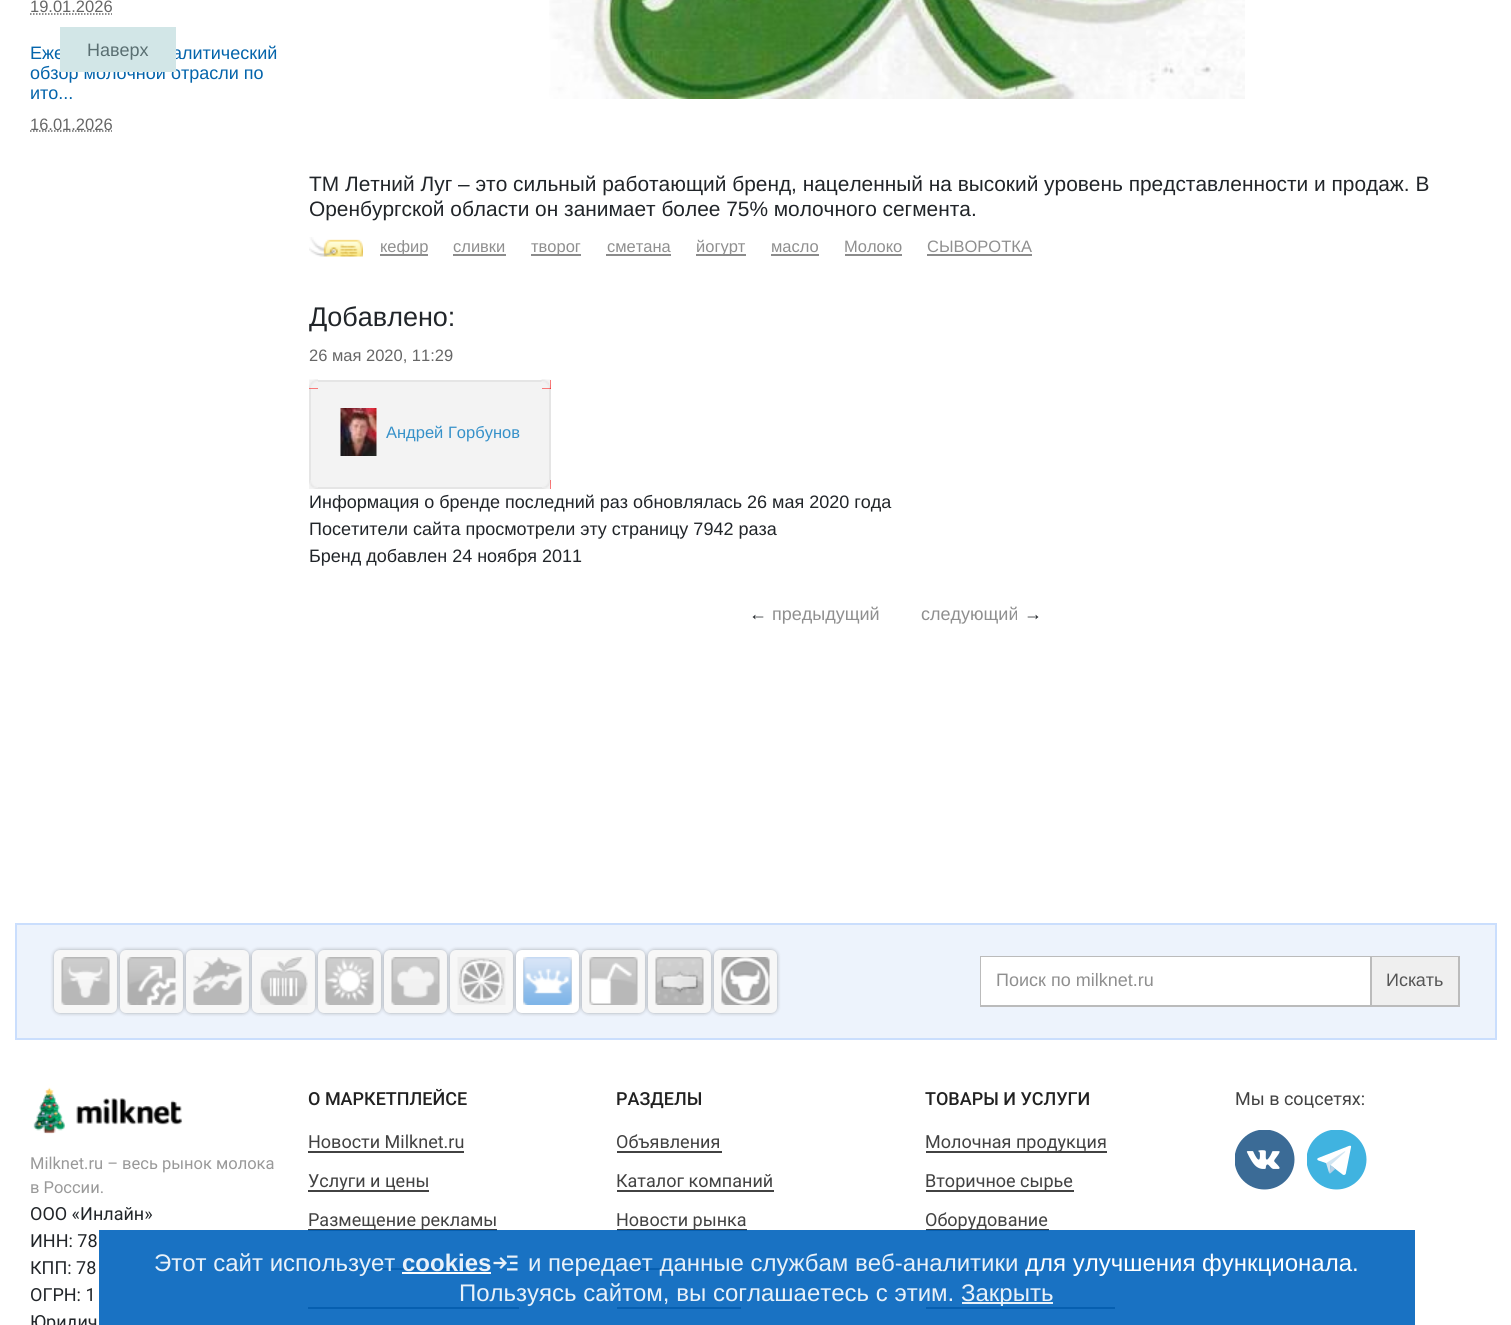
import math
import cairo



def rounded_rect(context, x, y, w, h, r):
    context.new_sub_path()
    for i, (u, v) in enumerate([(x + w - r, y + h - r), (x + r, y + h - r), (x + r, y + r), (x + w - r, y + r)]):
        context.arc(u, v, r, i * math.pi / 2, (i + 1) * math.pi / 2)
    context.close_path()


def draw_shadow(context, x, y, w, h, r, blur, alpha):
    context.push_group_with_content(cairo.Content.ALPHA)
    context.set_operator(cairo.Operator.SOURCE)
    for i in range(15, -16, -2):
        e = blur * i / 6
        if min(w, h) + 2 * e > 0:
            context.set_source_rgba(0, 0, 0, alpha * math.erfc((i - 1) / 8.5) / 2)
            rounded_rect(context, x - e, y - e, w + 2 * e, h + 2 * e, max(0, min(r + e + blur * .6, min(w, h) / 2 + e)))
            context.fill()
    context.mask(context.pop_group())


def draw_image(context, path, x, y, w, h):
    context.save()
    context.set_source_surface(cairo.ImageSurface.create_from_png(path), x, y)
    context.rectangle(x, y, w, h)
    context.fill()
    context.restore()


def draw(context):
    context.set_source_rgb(1, 1, 1)
    context.paint()
    context.new_path()
    context.move_to(30, 14)
    context.line_to(112, 14)
    context.set_source_rgb(102 / 255, 102 / 255, 102 / 255)
    context.set_line_width(1.5)
    context.set_dash([1.5, 1.5])
    context.stroke()
    context.new_path()
    context.move_to(30, 131)
    context.line_to(112, 131)
    context.stroke()
    draw_image(context, "images/1.png", 549, 0, 696, 99)
    draw_image(context, "images/2.png", 309, 237, 54, 20)
    context.set_source_rgb(139 / 255, 139 / 255, 139 / 255)
    context.rectangle(380, 254, 48, 2)
    context.fill()
    context.rectangle(453, 254, 53, 2)
    context.fill()
    context.rectangle(531, 254, 50, 2)
    context.fill()
    context.rectangle(606, 254, 65, 2)
    context.fill()
    context.rectangle(696, 254, 50, 2)
    context.fill()
    context.rectangle(771, 254, 48, 2)
    context.fill()
    context.rectangle(845, 254, 57, 2)
    context.fill()
    context.rectangle(927, 254, 105, 2)
    context.fill()
    context.set_source_rgb(243 / 255, 243 / 255, 243 / 255)
    context.rectangle(310, 381, 240, 107)
    context.fill_preserve()
    context.set_source_rgb(229 / 255, 229 / 255, 229 / 255)
    context.set_line_width(2)
    context.set_dash([])
    context.stroke()
    context.set_source_rgb(1, 0, 0)
    context.rectangle(309, 388, 9, 1)
    context.fill()
    draw_image(context, "images/3.png", 309, 379, 9, 10)
    context.rectangle(542, 380, 9, 9)
    context.fill()
    draw_image(context, "images/4.png", 541, 379, 10, 10)
    draw_image(context, "images/5.png", 340, 408, 37, 48)
    draw_image(context, "images/6.png", 309, 480, 9, 9)
    context.rectangle(550, 480, 1, 9)
    context.fill()
    draw_image(context, "images/7.png", 542, 480, 9, 9)
    context.set_source_rgb(237 / 255, 243 / 255, 252 / 255)
    context.rectangle(16, 924, 1480, 115)
    context.fill_preserve()
    context.set_source_rgb(202 / 255, 222 / 255, 253 / 255)
    context.stroke()
    context.set_source_rgb(0, 0, 0)
    draw_shadow(context, 54, 950, 63, 63, 6, 2, 0.3)
    context.set_source_rgb(247 / 255, 247 / 255, 247 / 255)
    rounded_rect(context, 54, 950, 63, 63, 6)
    context.fill()
    draw_image(context, "images/8.png", 61, 957, 49, 48)
    context.set_source_rgb(0, 0, 0)
    draw_shadow(context, 120, 950, 63, 63, 6, 2, 0.3)
    context.set_source_rgb(247 / 255, 247 / 255, 247 / 255)
    rounded_rect(context, 120, 950, 63, 63, 6)
    context.fill()
    draw_image(context, "images/9.png", 127, 957, 49, 48)
    context.set_source_rgb(0, 0, 0)
    draw_shadow(context, 186, 950, 63, 63, 6, 2, 0.3)
    context.set_source_rgb(247 / 255, 247 / 255, 247 / 255)
    rounded_rect(context, 186, 950, 63, 63, 6)
    context.fill()
    draw_image(context, "images/10.png", 193, 957, 49, 48)
    context.set_source_rgb(0, 0, 0)
    draw_shadow(context, 252, 950, 63, 63, 6, 2, 0.3)
    context.set_source_rgb(247 / 255, 247 / 255, 247 / 255)
    rounded_rect(context, 252, 950, 63, 63, 6)
    context.fill()
    draw_image(context, "images/11.png", 260, 957, 48, 48)
    context.set_source_rgb(0, 0, 0)
    draw_shadow(context, 318, 950, 63, 63, 6, 2, 0.3)
    context.set_source_rgb(247 / 255, 247 / 255, 247 / 255)
    rounded_rect(context, 318, 950, 63, 63, 6)
    context.fill()
    draw_image(context, "images/12.png", 325, 957, 49, 48)
    context.set_source_rgb(0, 0, 0)
    draw_shadow(context, 384, 950, 63, 63, 6, 2, 0.3)
    context.set_source_rgb(247 / 255, 247 / 255, 247 / 255)
    rounded_rect(context, 384, 950, 63, 63, 6)
    context.fill()
    draw_image(context, "images/13.png", 391, 957, 49, 48)
    context.set_source_rgb(0, 0, 0)
    draw_shadow(context, 450, 950, 63, 63, 6, 2, 0.3)
    context.set_source_rgb(247 / 255, 247 / 255, 247 / 255)
    rounded_rect(context, 450, 950, 63, 63, 6)
    context.fill()
    draw_image(context, "images/14.png", 457, 957, 49, 48)
    context.set_source_rgb(0, 0, 0)
    draw_shadow(context, 516, 950, 63, 63, 6, 2, 0.3)
    context.set_source_rgb(1, 1, 1)
    rounded_rect(context, 516, 950, 63, 63, 6)
    context.fill()
    draw_image(context, "images/15.png", 523, 957, 49, 48)
    draw_image(context, "images/16.png", 523, 957, 49, 48)
    context.set_source_rgb(0, 0, 0)
    draw_shadow(context, 582, 950, 63, 63, 6, 2, 0.3)
    context.set_source_rgb(247 / 255, 247 / 255, 247 / 255)
    rounded_rect(context, 582, 950, 63, 63, 6)
    context.fill()
    draw_image(context, "images/17.png", 589, 957, 49, 48)
    context.set_source_rgb(0, 0, 0)
    draw_shadow(context, 648, 950, 63, 63, 6, 2, 0.3)
    context.set_source_rgb(247 / 255, 247 / 255, 247 / 255)
    rounded_rect(context, 648, 950, 63, 63, 6)
    context.fill()
    draw_image(context, "images/18.png", 655, 957, 49, 48)
    context.set_source_rgb(0, 0, 0)
    draw_shadow(context, 714, 950, 63, 63, 6, 2, 0.3)
    context.set_source_rgb(247 / 255, 247 / 255, 247 / 255)
    rounded_rect(context, 714, 950, 63, 63, 6)
    context.fill()
    draw_image(context, "images/19.png", 721, 957, 49, 48)
    context.rectangle(981, 957, 478, 49)
    context.set_source_rgb(187 / 255, 187 / 255, 187 / 255)
    context.stroke()
    context.set_source_rgb(1, 1, 1)
    context.rectangle(981, 957, 389, 48)
    context.fill()
    context.set_source_rgb(239 / 255, 239 / 255, 239 / 255)
    context.rectangle(1372, 957, 86, 48)
    context.fill()
    context.set_source_rgb(187 / 255, 187 / 255, 187 / 255)
    context.rectangle(1370, 957, 2, 48)
    context.fill()
    context.set_source_rgb(66 / 255, 66 / 255, 66 / 255)
    context.rectangle(308, 1151, 156, 2)
    context.fill()
    context.rectangle(308, 1190, 121, 2)
    context.fill()
    context.rectangle(308, 1229, 189, 2)
    context.fill()
    context.rectangle(308, 1268, 157, 2)
    context.fill()
    context.rectangle(308, 1307, 211, 2)
    context.fill()
    context.rectangle(617, 1151, 105, 2)
    context.fill()
    context.rectangle(617, 1190, 157, 2)
    context.fill()
    context.rectangle(617, 1229, 130, 2)
    context.fill()
    context.rectangle(617, 1268, 55, 2)
    context.fill()
    context.rectangle(617, 1307, 124, 2)
    context.fill()
    context.rectangle(926, 1151, 181, 2)
    context.fill()
    context.rectangle(926, 1190, 148, 2)
    context.fill()
    context.rectangle(926, 1229, 123, 2)
    context.fill()
    context.rectangle(926, 1268, 61, 2)
    context.fill()
    context.rectangle(926, 1307, 189, 2)
    context.fill()
    draw_image(context, "images/20.png", 1235, 1130, 60, 60)
    draw_image(context, "images/21.png", 1307, 1130, 60, 60)
    draw_image(context, "images/22.png", 33, 1087, 150, 47)
    context.set_source_rgba(0, 99 / 255, 189 / 255, 0.9)
    context.rectangle(99, 1230, 1316, 95)
    context.fill()
    context.set_source_rgb(1, 1, 1)
    context.rectangle(402, 1272, 89, 2)
    context.fill()
    draw_image(context, "images/23.png", 493, 1255, 25, 16)
    context.set_source_rgba(1, 1, 1, 0.9)
    context.rectangle(962, 1302, 91, 2)
    context.fill()
    context.select_font_face("Liberation Sans")
    context.set_font_size(16.5)
    context.set_source_rgb(102 / 255, 102 / 255, 102 / 255)
    context.move_to(30, 12)
    context.show_text("19.01.2026")
    context.set_font_size(18)
    context.set_source_rgb(3 / 255, 100 / 255, 171 / 255)
    context.move_to(30, 59)
    context.show_text("Еже")
    context.move_to(172, 59)
    context.show_text("алитический")
    context.move_to(30, 79)
    context.show_text("обзор молочной отрасли по")
    context.move_to(30, 99)
    context.show_text("ито...")
    context.set_font_size(16.5)
    context.set_source_rgb(102 / 255, 102 / 255, 102 / 255)
    context.move_to(30, 130)
    context.show_text("16.01.2026")
    context.set_font_size(20.88)
    context.set_source_rgb(33 / 255, 37 / 255, 41 / 255)
    context.move_to(309, 191)
    context.show_text("ТМ Летний Луг – это сильный работающий бренд, нацеленный на высокий уровень представленности и продаж. В")
    context.move_to(309, 216)
    context.show_text("Оренбургской области он занимает более 75% молочного сегмента.")
    context.set_font_size(16.5)
    context.set_source_rgb(143 / 255, 143 / 255, 143 / 255)
    context.move_to(380, 252)
    context.show_text("кефир")
    context.move_to(453, 252)
    context.show_text("сливки")
    context.move_to(531, 252)
    context.show_text("творог")
    context.move_to(607, 252)
    context.show_text("сметана")
    context.move_to(696, 252)
    context.show_text("йогурт")
    context.move_to(771, 252)
    context.show_text("масло")
    context.move_to(844, 252)
    context.show_text("Молоко")
    context.move_to(927, 252)
    context.show_text("СЫВОРОТКА")
    context.set_font_size(27)
    context.set_source_rgb(33 / 255, 37 / 255, 41 / 255)
    context.move_to(309, 326)
    context.show_text("Добавлено:")
    context.set_font_size(16.5)
    context.set_source_rgb(102 / 255, 102 / 255, 102 / 255)
    context.move_to(309, 361)
    context.show_text("26 мая 2020, 11:29")
    context.set_source_rgb(54 / 255, 145 / 255, 201 / 255)
    context.move_to(386, 438)
    context.show_text("Андрей Горбунов")
    context.set_font_size(18)
    context.set_source_rgb(33 / 255, 37 / 255, 41 / 255)
    context.move_to(309, 508)
    context.show_text("Информация о бренде последний раз обновлялась 26 мая 2020 года")
    context.move_to(309, 535)
    context.show_text("Посетители сайта просмотрели эту страницу 7942 раза")
    context.move_to(309, 562)
    context.show_text("Бренд добавлен 24 ноября 2011")
    context.move_to(749, 620)
    context.show_text("←")
    context.set_source_rgb(143 / 255, 143 / 255, 143 / 255)
    context.move_to(772, 620)
    context.show_text("предыдущий")
    context.move_to(921, 620)
    context.show_text("следующий")
    context.set_source_rgb(33 / 255, 37 / 255, 41 / 255)
    context.move_to(1024, 620)
    context.show_text("→")
    context.set_source_rgb(210 / 255, 230 / 255, 231 / 255)
    context.rectangle(60, 27, 116, 45)
    context.fill()
    context.set_source_rgb(90 / 255, 111 / 255, 114 / 255)
    context.move_to(87, 56)
    context.show_text("Наверх")
    context.set_source_rgb(143 / 255, 143 / 255, 143 / 255)
    context.move_to(996, 986)
    context.show_text("Поиск по milknet.ru")
    context.set_source_rgb(85 / 255, 85 / 255, 85 / 255)
    context.move_to(1386, 986)
    context.show_text("Искать")
    context.select_font_face("Roboto Medium")
    context.set_source_rgb(33 / 255, 33 / 255, 33 / 255)
    context.move_to(308, 1105)
    context.show_text("О МАРКЕТПЛЕЙСЕ")
    context.select_font_face("Roboto")
    context.set_source_rgb(66 / 255, 66 / 255, 66 / 255)
    context.move_to(308, 1148)
    context.show_text("Новости Milknet.ru")
    context.move_to(308, 1187)
    context.show_text("Услуги и цены")
    context.move_to(308, 1226)
    context.show_text("Размещение рекламы")
    context.select_font_face("Roboto Medium")
    context.set_source_rgb(33 / 255, 33 / 255, 33 / 255)
    context.move_to(616, 1105)
    context.show_text("РАЗДЕЛЫ")
    context.select_font_face("Roboto")
    context.set_source_rgb(66 / 255, 66 / 255, 66 / 255)
    context.move_to(616, 1148)
    context.show_text("Объявления")
    context.move_to(616, 1187)
    context.show_text("Каталог компаний")
    context.move_to(616, 1226)
    context.show_text("Новости рынка")
    context.select_font_face("Roboto Medium")
    context.set_source_rgb(33 / 255, 33 / 255, 33 / 255)
    context.move_to(925, 1105)
    context.show_text("ТОВАРЫ И УСЛУГИ")
    context.select_font_face("Roboto")
    context.set_source_rgb(66 / 255, 66 / 255, 66 / 255)
    context.move_to(925, 1148)
    context.show_text("Молочная продукция")
    context.move_to(925, 1187)
    context.show_text("Вторичное сырье")
    context.move_to(925, 1226)
    context.show_text("Оборудование")
    context.move_to(1235, 1105)
    context.show_text("Мы в соцсетях:")
    context.set_font_size(16.5)
    context.set_source_rgb(153 / 255, 153 / 255, 153 / 255)
    context.move_to(30, 1169)
    context.show_text("Milknet.ru – весь рынок молока")
    context.move_to(30, 1193)
    context.show_text("в России.")
    context.set_font_size(18)
    context.set_source_rgb(33 / 255, 37 / 255, 41 / 255)
    context.move_to(30, 1220)
    context.show_text("ООО «Инлайн»")
    context.move_to(30, 1247)
    context.show_text("ИНН: 78")
    context.move_to(30, 1274)
    context.show_text("КПП: 78")
    context.move_to(30, 1301)
    context.show_text("ОГРН: 1")
    context.move_to(30, 1328)
    context.show_text("Юридич")
    context.select_font_face("Liberation Sans")
    context.set_font_size(24)
    context.set_source_rgb(232 / 255, 241 / 255, 249 / 255)
    context.move_to(154, 1271)
    context.show_text("Этот сайт использует")
    context.select_font_face("Liberation Sans", cairo.FontSlant.NORMAL, cairo.FontWeight.BOLD)
    context.move_to(402, 1271)
    context.show_text("cookies")
    context.select_font_face("Liberation Sans")
    context.move_to(528, 1271)
    context.show_text("и передает данные службам веб-аналитики")
    context.set_source_rgb(1, 1, 1)
    context.move_to(1025, 1271)
    context.show_text("для улучшения функционала.")
    context.set_source_rgb(232 / 255, 241 / 255, 249 / 255)
    context.move_to(459, 1301)
    context.show_text("Пользуясь сайтом, вы соглашаетесь с этим.")
    context.move_to(961, 1301)
    context.show_text("Закрыть")


surface = cairo.ImageSurface(cairo.Format.RGB24, 1511, 1325)
context = cairo.Context(surface)
options = cairo.FontOptions()
options.set_hint_metrics(cairo.HintMetrics.OFF)
options.set_hint_style(cairo.HintStyle.NONE)
context.set_font_options(options)
context.set_miter_limit(4)
draw(context)
surface.write_to_png("out.png")
